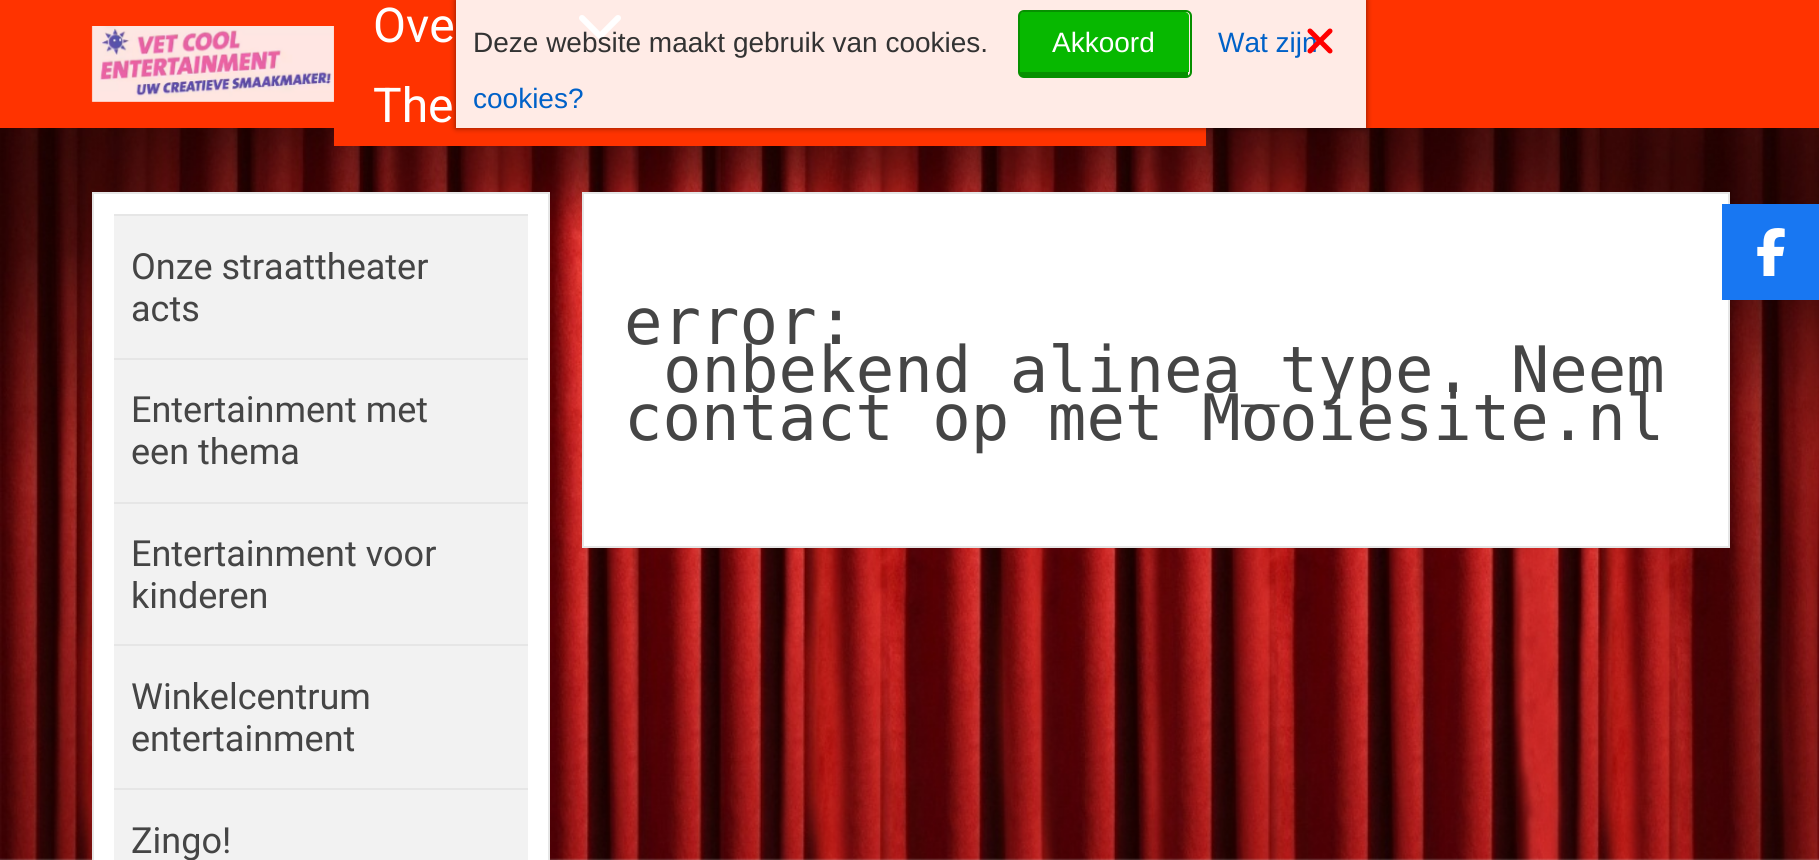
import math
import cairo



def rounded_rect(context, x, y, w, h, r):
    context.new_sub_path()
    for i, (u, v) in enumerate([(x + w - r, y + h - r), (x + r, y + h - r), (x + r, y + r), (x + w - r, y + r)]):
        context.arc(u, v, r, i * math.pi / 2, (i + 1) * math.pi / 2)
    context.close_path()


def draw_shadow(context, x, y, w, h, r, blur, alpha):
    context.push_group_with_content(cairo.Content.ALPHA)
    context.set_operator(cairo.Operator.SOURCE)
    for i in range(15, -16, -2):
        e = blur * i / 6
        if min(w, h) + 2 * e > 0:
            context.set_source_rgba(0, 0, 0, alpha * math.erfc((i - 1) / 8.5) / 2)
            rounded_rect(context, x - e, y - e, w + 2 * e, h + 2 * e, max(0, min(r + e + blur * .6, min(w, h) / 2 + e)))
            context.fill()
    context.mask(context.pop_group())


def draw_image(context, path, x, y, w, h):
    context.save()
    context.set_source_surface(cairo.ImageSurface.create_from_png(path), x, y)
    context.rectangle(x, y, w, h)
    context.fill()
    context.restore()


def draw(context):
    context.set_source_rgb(1, 1, 1)
    context.paint()
    context.set_source_rgb(1, 51 / 255, 0)
    context.rectangle(0, 0, 1819, 128)
    context.fill()
    draw_image(context, "images/1.png", 91, 26, 243, 76)
    draw_image(context, "images/2.png", 579, 15, 42, 24)
    draw_image(context, "images/3.png", 0, 128, 1819, 732)
    context.rectangle(334, 128, 872, 18)
    context.fill()
    context.set_source_rgb(1, 1, 1)
    context.rectangle(93, 193, 456, 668)
    context.fill_preserve()
    context.set_source_rgb(230 / 255, 230 / 255, 230 / 255)
    context.stroke()
    context.rectangle(114, 214, 414, 2)
    context.fill()
    context.rectangle(114, 358, 414, 2)
    context.fill()
    context.set_source_rgb(242 / 255, 242 / 255, 242 / 255)
    context.rectangle(114, 216, 414, 142)
    context.fill()
    context.set_source_rgb(230 / 255, 230 / 255, 230 / 255)
    context.rectangle(114, 502, 414, 2)
    context.fill()
    context.set_source_rgb(242 / 255, 242 / 255, 242 / 255)
    context.rectangle(114, 360, 414, 142)
    context.fill()
    context.set_source_rgb(230 / 255, 230 / 255, 230 / 255)
    context.rectangle(114, 644, 414, 2)
    context.fill()
    context.set_source_rgb(242 / 255, 242 / 255, 242 / 255)
    context.rectangle(114, 504, 414, 140)
    context.fill()
    context.set_source_rgb(230 / 255, 230 / 255, 230 / 255)
    context.rectangle(114, 788, 414, 2)
    context.fill()
    context.set_source_rgb(242 / 255, 242 / 255, 242 / 255)
    context.rectangle(114, 646, 414, 142)
    context.fill()
    context.rectangle(114, 790, 414, 70)
    context.fill()
    context.set_source_rgb(1, 1, 1)
    context.rectangle(583, 193, 1146, 354)
    context.fill_preserve()
    context.set_source_rgb(230 / 255, 230 / 255, 230 / 255)
    context.stroke()
    context.save()
    context.set_fill_rule(cairo.FillRule.EVEN_ODD)
    context.new_path()
    context.move_to(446, 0)
    context.line_to(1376, 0)
    context.line_to(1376, 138)
    context.line_to(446, 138)
    context.close_path()
    context.move_to(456, 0)
    context.line_to(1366, 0)
    context.line_to(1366, 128)
    context.line_to(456, 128)
    context.close_path()
    context.clip()
    context.set_source_rgb(0, 0, 0)
    draw_shadow(context, 456, 0, 910, 128, 0, 3, 0.5)
    context.restore()
    context.set_source_rgba(1, 1, 1, 0.9)
    context.rectangle(456, 0, 910, 128)
    context.fill()
    context.set_source_rgb(7 / 255, 184 / 255, 0)
    context.new_path()
    context.move_to(1023, 12)
    context.line_to(1185, 12)
    context.curve_to(1187, 12, 1189, 14, 1189, 16)
    context.line_to(1189, 72)
    context.line_to(1019, 72)
    context.line_to(1019, 16)
    context.curve_to(1019, 14, 1021, 12, 1023, 12)
    context.close_path()
    context.fill()
    rounded_rect(context, 1019, 11, 172, 66, 5)
    context.set_source_rgb(6 / 255, 144 / 255, 0)
    context.stroke()
    context.rectangle(1020, 72, 168, 4)
    context.fill()
    context.set_source_rgb(24 / 255, 119 / 255, 242 / 255)
    context.rectangle(1722, 204, 97, 96)
    context.fill()
    draw_image(context, "images/5.png", 1757, 228, 28, 48)
    context.select_font_face("Roboto")
    context.set_font_size(48)
    context.set_source_rgb(1, 1, 1)
    context.move_to(373, 42)
    context.show_text("Ove")
    context.move_to(373, 122)
    context.show_text("The")
    context.set_font_size(36)
    context.set_source_rgb(69 / 255, 69 / 255, 69 / 255)
    context.move_to(131, 279)
    context.show_text("Onze straattheater")
    context.move_to(131, 321)
    context.show_text("acts")
    context.move_to(131, 422)
    context.show_text("Entertainment met")
    context.move_to(131, 464)
    context.show_text("een thema")
    context.move_to(131, 566)
    context.show_text("Entertainment voor")
    context.move_to(131, 608)
    context.show_text("kinderen")
    context.move_to(131, 709)
    context.show_text("Winkelcentrum")
    context.move_to(131, 751)
    context.show_text("entertainment")
    context.move_to(131, 853)
    context.show_text("Zingo!")
    context.select_font_face("DejaVu Sans Mono")
    context.set_font_size(64)
    context.move_to(624, 344)
    context.show_text("error:")
    context.move_to(663, 392)
    context.show_text("onbekend alinea_type. Neem")
    context.move_to(624, 440)
    context.show_text("contact op met Mooiesite.nl")
    context.select_font_face("Liberation Sans")
    context.set_font_size(28)
    context.set_source_rgb(51 / 255, 51 / 255, 51 / 255)
    context.move_to(473, 52)
    context.show_text("Deze website maakt gebruik van cookies.")
    context.set_source_rgb(1, 1, 1)
    context.move_to(1052, 52)
    context.show_text("Akkoord")
    context.set_source_rgb(0, 97 / 255, 200 / 255)
    context.move_to(1218, 52)
    context.show_text("Wat zijn")
    draw_image(context, "images/4.png", 1307, 28, 26, 26)
    context.move_to(473, 108)
    context.show_text("cookies?")


surface = cairo.ImageSurface(cairo.Format.RGB24, 1819, 860)
context = cairo.Context(surface)
options = cairo.FontOptions()
options.set_hint_metrics(cairo.HintMetrics.OFF)
options.set_hint_style(cairo.HintStyle.NONE)
context.set_font_options(options)
context.set_miter_limit(4)
draw(context)
surface.write_to_png("out.png")
